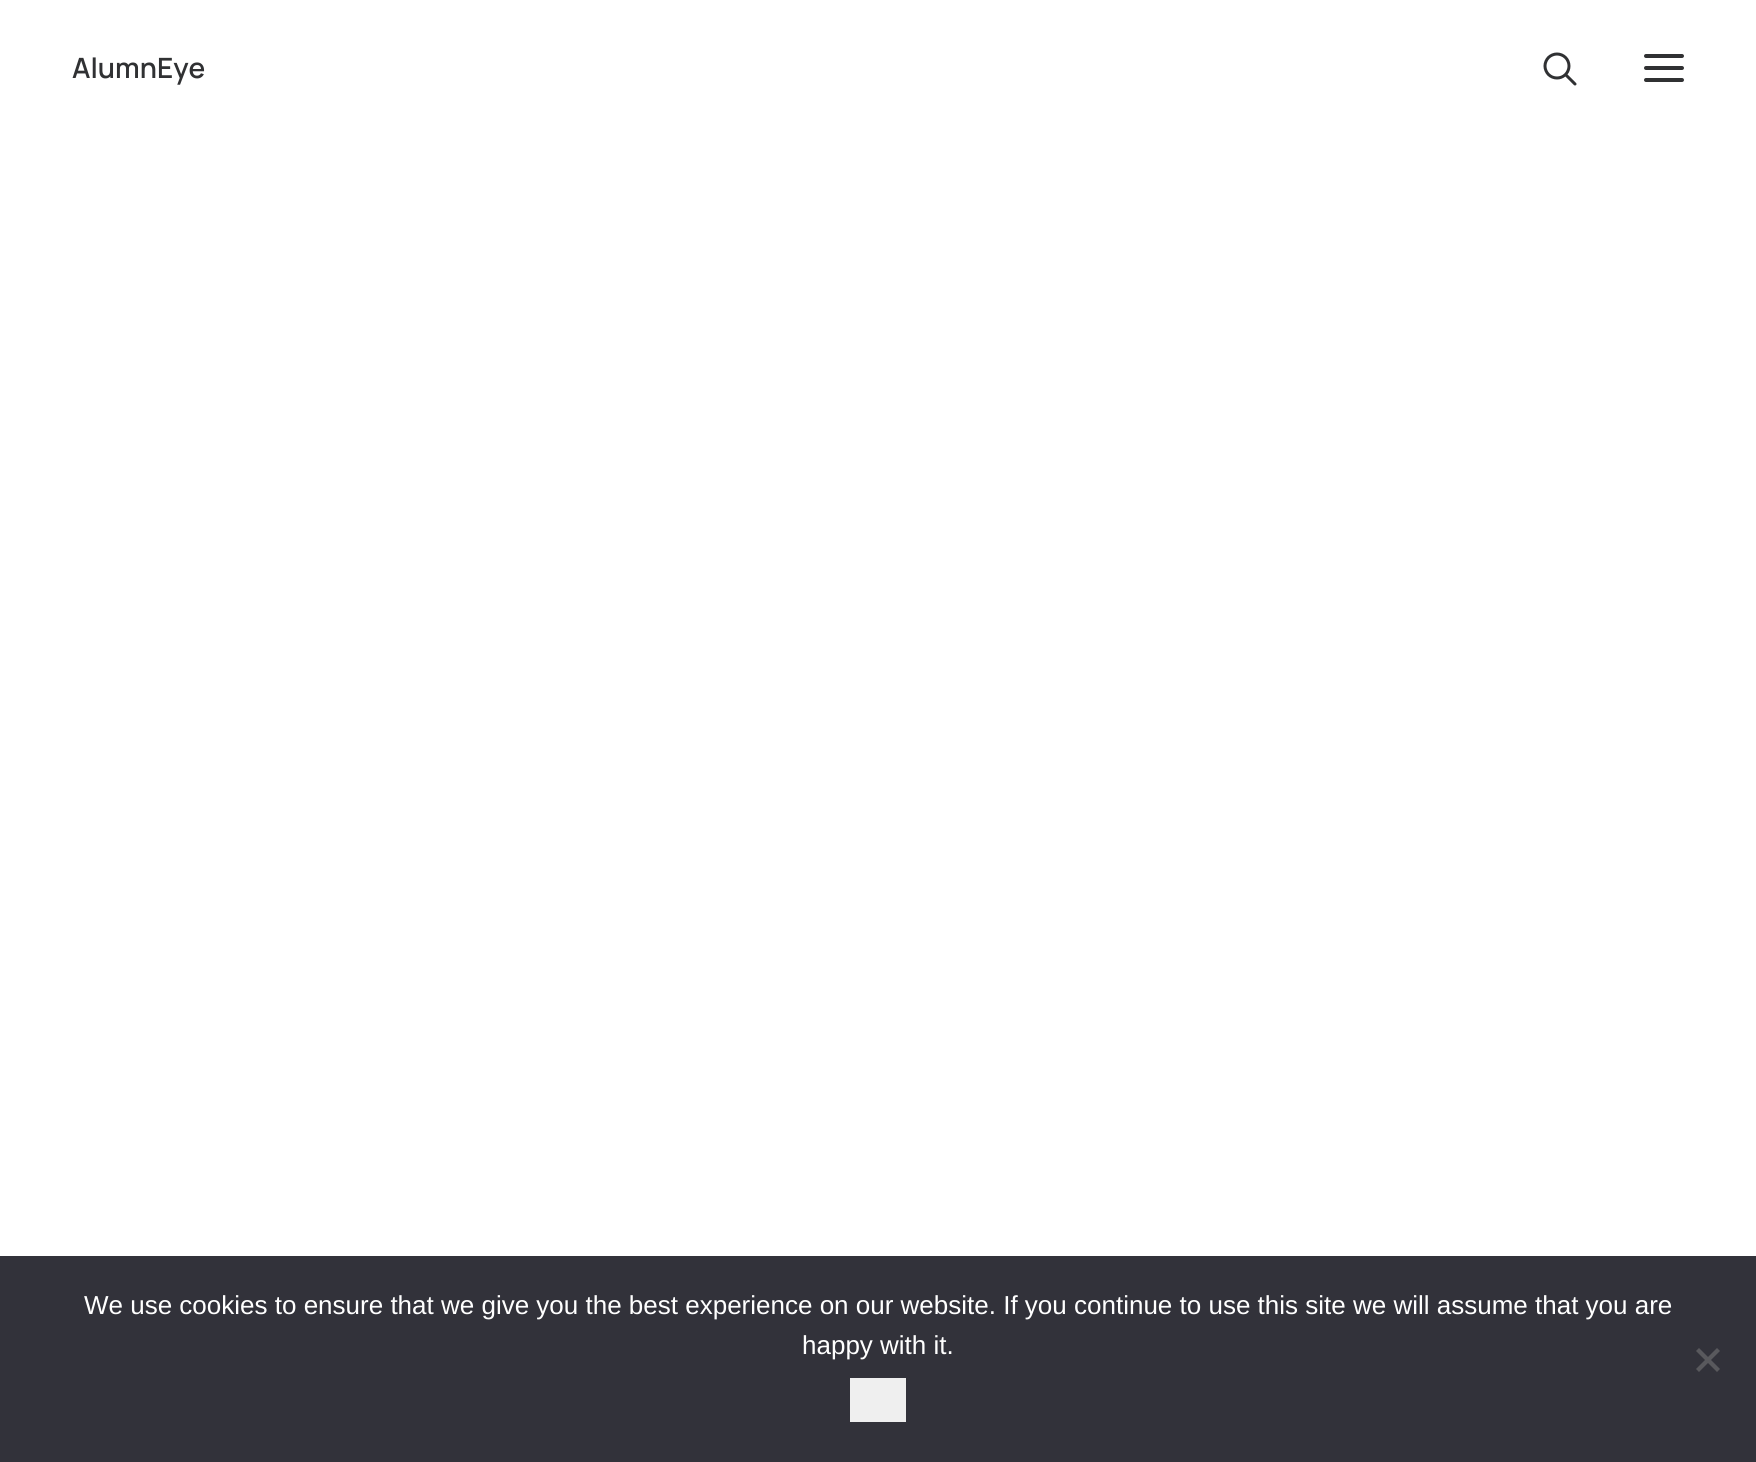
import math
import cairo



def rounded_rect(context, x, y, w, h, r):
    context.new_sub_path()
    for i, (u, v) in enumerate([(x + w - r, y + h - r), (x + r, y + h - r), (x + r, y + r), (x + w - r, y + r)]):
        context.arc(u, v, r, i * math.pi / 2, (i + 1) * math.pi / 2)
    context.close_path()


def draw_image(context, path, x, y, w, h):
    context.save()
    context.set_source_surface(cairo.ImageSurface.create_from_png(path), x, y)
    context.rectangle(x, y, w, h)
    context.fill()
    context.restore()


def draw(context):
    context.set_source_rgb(1, 1, 1)
    context.paint()
    draw_image(context, "images/1.png", 1543, 52, 34, 34)
    context.set_source_rgb(48 / 255, 49 / 255, 51 / 255)
    rounded_rect(context, 1644, 66, 40, 4, 2)
    context.fill()
    rounded_rect(context, 1644, 54, 40, 4, 2)
    context.fill()
    rounded_rect(context, 1644, 78, 40, 4, 2)
    context.fill()
    context.set_source_rgb(50 / 255, 50 / 255, 58 / 255)
    context.rectangle(0, 1256, 1756, 206)
    context.fill()
    context.set_source_rgb(89 / 255, 89 / 255, 93 / 255)
    context.new_path()
    context.move_to(1717, 1348)
    context.line_to(1720, 1351)
    context.line_to(1699, 1372)
    context.line_to(1696, 1369)
    context.close_path()
    context.fill()
    context.new_path()
    context.move_to(1696, 1351)
    context.line_to(1699, 1348)
    context.line_to(1720, 1369)
    context.line_to(1717, 1372)
    context.close_path()
    context.fill()
    context.set_source_rgb(239 / 255, 239 / 255, 239 / 255)
    context.rectangle(850, 1378, 56, 44)
    context.fill()
    context.select_font_face("Manrope SemiBold")
    context.set_font_size(28)
    context.set_source_rgb(48 / 255, 49 / 255, 51 / 255)
    context.move_to(72, 78)
    context.show_text("AlumnEye")
    context.select_font_face("Liberation Sans")
    context.set_font_size(26)
    context.set_source_rgb(1, 1, 1)
    context.move_to(84, 1314)
    context.show_text("We use cookies to ensure that we give you the best experience on our website. If you continue to use this site we will assume that you are")
    context.move_to(802, 1354)
    context.show_text("happy with it.")


surface = cairo.ImageSurface(cairo.Format.RGB24, 1756, 1462)
context = cairo.Context(surface)
options = cairo.FontOptions()
options.set_hint_metrics(cairo.HintMetrics.OFF)
options.set_hint_style(cairo.HintStyle.NONE)
context.set_font_options(options)
context.set_miter_limit(4)
draw(context)
surface.write_to_png("out.png")
